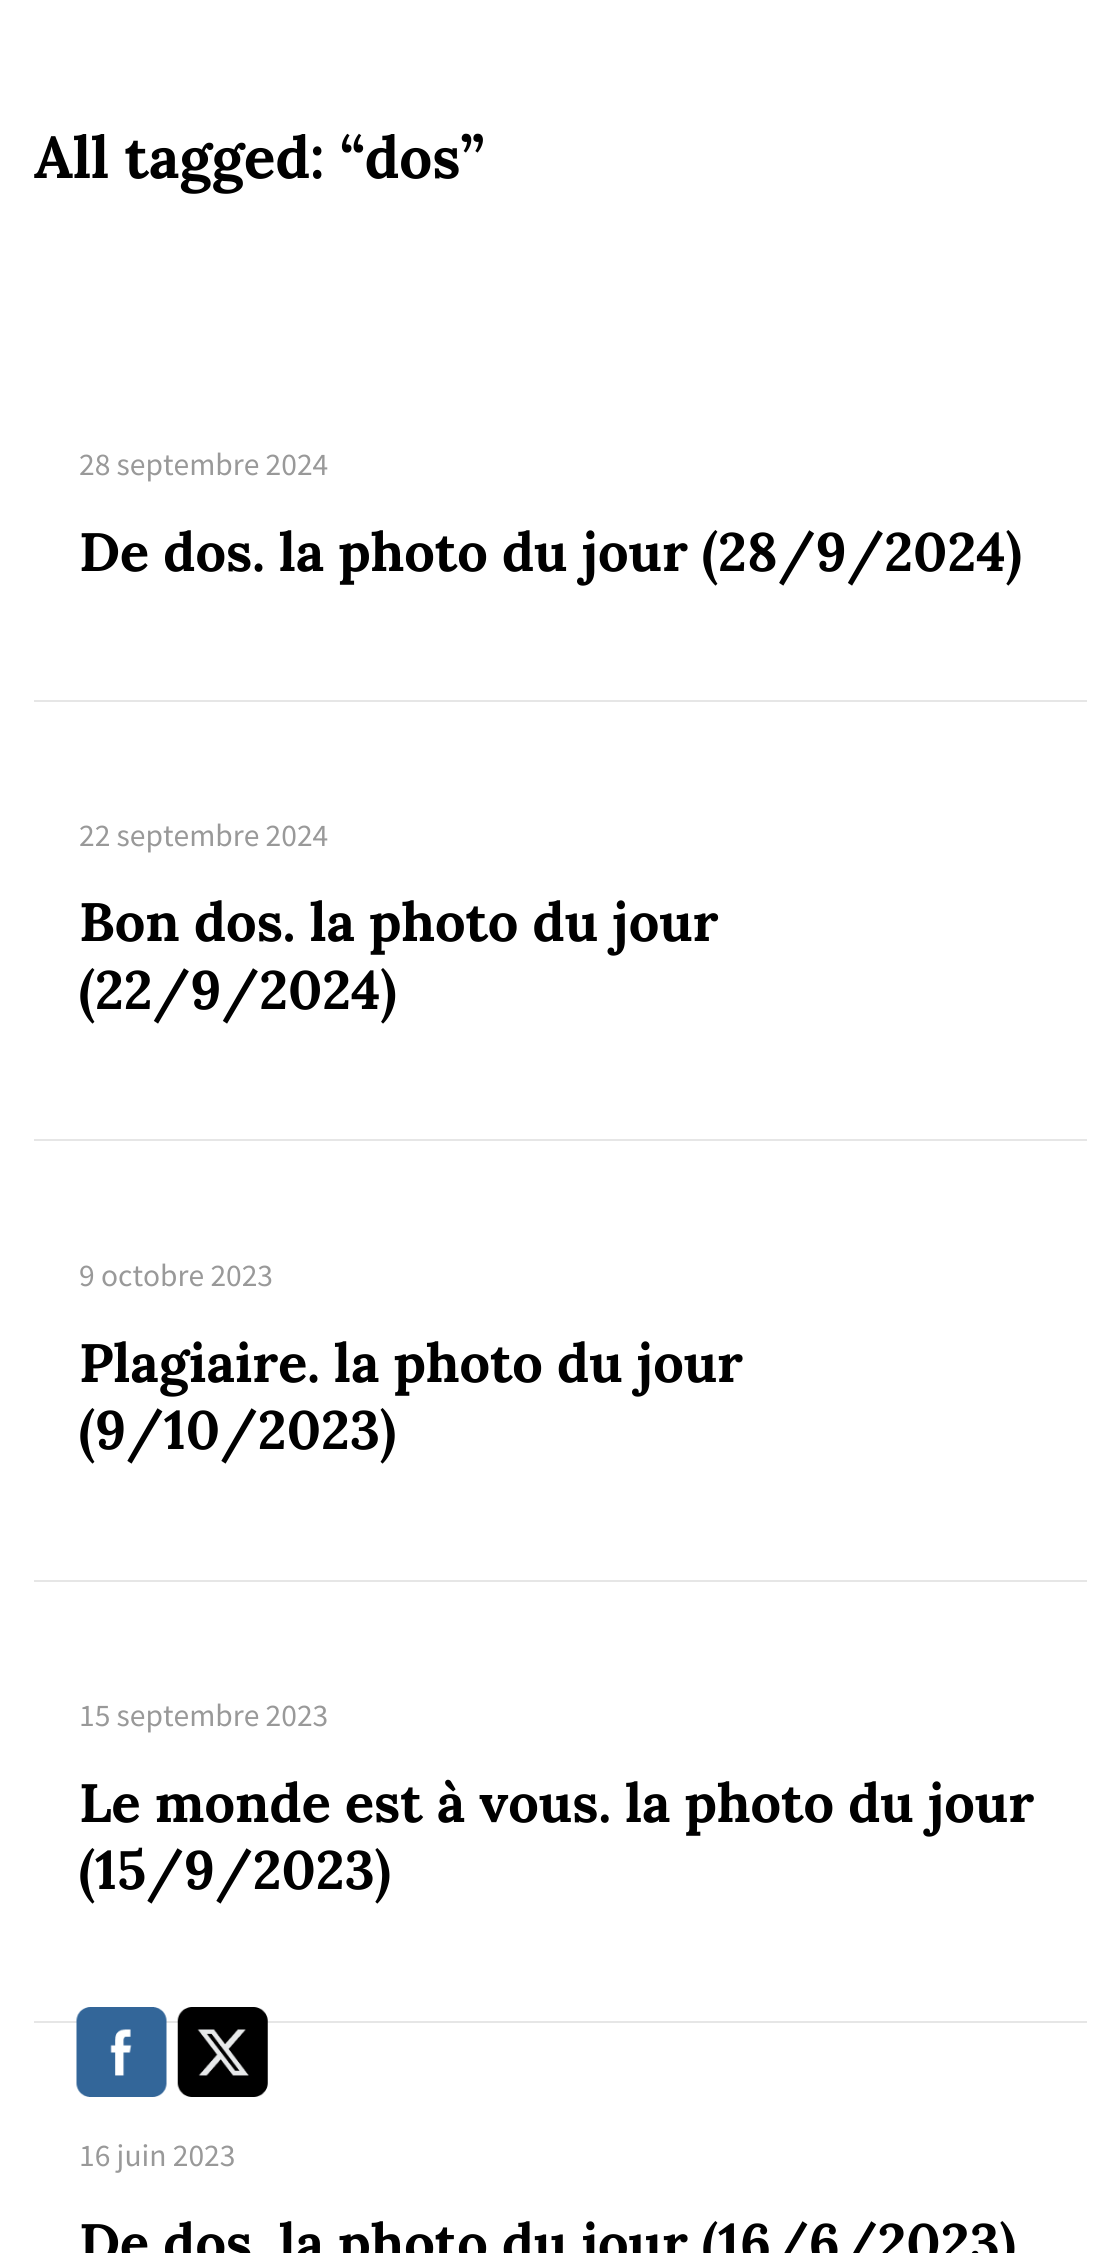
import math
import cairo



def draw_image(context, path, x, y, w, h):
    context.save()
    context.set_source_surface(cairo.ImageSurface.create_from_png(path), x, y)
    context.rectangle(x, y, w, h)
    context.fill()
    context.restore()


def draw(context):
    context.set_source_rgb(1, 1, 1)
    context.paint()
    context.set_source_rgb(230 / 255, 230 / 255, 230 / 255)
    context.rectangle(34, 700, 1053, 2)
    context.fill()
    context.rectangle(34, 1139, 1053, 2)
    context.fill()
    context.rectangle(34, 1580, 1053, 2)
    context.fill()
    context.rectangle(34, 2021, 1053, 2)
    context.fill()
    draw_image(context, "images/1.png", 76, 2007, 91, 90)
    draw_image(context, "images/2.png", 177, 2007, 91, 90)
    context.select_font_face("Lora", cairo.FontSlant.NORMAL, cairo.FontWeight.BOLD)
    context.set_font_size(58.25)
    context.set_source_rgb(0, 0, 0)
    context.move_to(34, 178)
    context.show_text("All tagged: “dos”")
    context.select_font_face("Source Sans Pro")
    context.set_font_size(31.5)
    context.set_source_rgb(153 / 255, 153 / 255, 153 / 255)
    context.move_to(79, 475)
    context.show_text("28 septembre 2024")
    context.select_font_face("Lora", cairo.FontSlant.NORMAL, cairo.FontWeight.BOLD)
    context.set_font_size(54)
    context.set_source_rgb(0, 0, 0)
    context.move_to(79, 571)
    context.show_text("De dos. la photo du jour (28/9/2024)")
    context.select_font_face("Source Sans Pro")
    context.set_font_size(31.5)
    context.set_source_rgb(153 / 255, 153 / 255, 153 / 255)
    context.move_to(79, 846)
    context.show_text("22 septembre 2024")
    context.select_font_face("Lora", cairo.FontSlant.NORMAL, cairo.FontWeight.BOLD)
    context.set_font_size(54)
    context.set_source_rgb(0, 0, 0)
    context.move_to(79, 941)
    context.show_text("Bon dos. la photo du jour")
    context.move_to(79, 1009)
    context.show_text("(22/9/2024)")
    context.select_font_face("Source Sans Pro")
    context.set_font_size(31.5)
    context.set_source_rgb(153 / 255, 153 / 255, 153 / 255)
    context.move_to(79, 1286)
    context.show_text("9 octobre 2023")
    context.select_font_face("Lora", cairo.FontSlant.NORMAL, cairo.FontWeight.BOLD)
    context.set_font_size(54)
    context.set_source_rgb(0, 0, 0)
    context.move_to(79, 1382)
    context.show_text("Plagiaire. la photo du jour")
    context.move_to(79, 1449)
    context.show_text("(9/10/2023)")
    context.select_font_face("Source Sans Pro")
    context.set_font_size(31.5)
    context.set_source_rgb(153 / 255, 153 / 255, 153 / 255)
    context.move_to(79, 1726)
    context.show_text("15 septembre 2023")
    context.select_font_face("Lora", cairo.FontSlant.NORMAL, cairo.FontWeight.BOLD)
    context.set_font_size(54)
    context.set_source_rgb(0, 0, 0)
    context.move_to(79, 1822)
    context.show_text("Le monde est à vous. la photo du jour")
    context.move_to(79, 1889)
    context.show_text("(15/9/2023)")
    context.select_font_face("Source Sans Pro")
    context.set_font_size(31.5)
    context.set_source_rgb(153 / 255, 153 / 255, 153 / 255)
    context.move_to(79, 2166)
    context.show_text("16 juin 2023")
    context.select_font_face("Lora", cairo.FontSlant.NORMAL, cairo.FontWeight.BOLD)
    context.set_font_size(54)
    context.set_source_rgb(0, 0, 0)
    context.move_to(79, 2262)
    context.show_text("De dos. la photo du jour (16/6/2023)")


surface = cairo.ImageSurface(cairo.Format.RGB24, 1119, 2253)
context = cairo.Context(surface)
options = cairo.FontOptions()
options.set_hint_metrics(cairo.HintMetrics.OFF)
options.set_hint_style(cairo.HintStyle.NONE)
context.set_font_options(options)
context.set_miter_limit(4)
draw(context)
surface.write_to_png("out.png")
